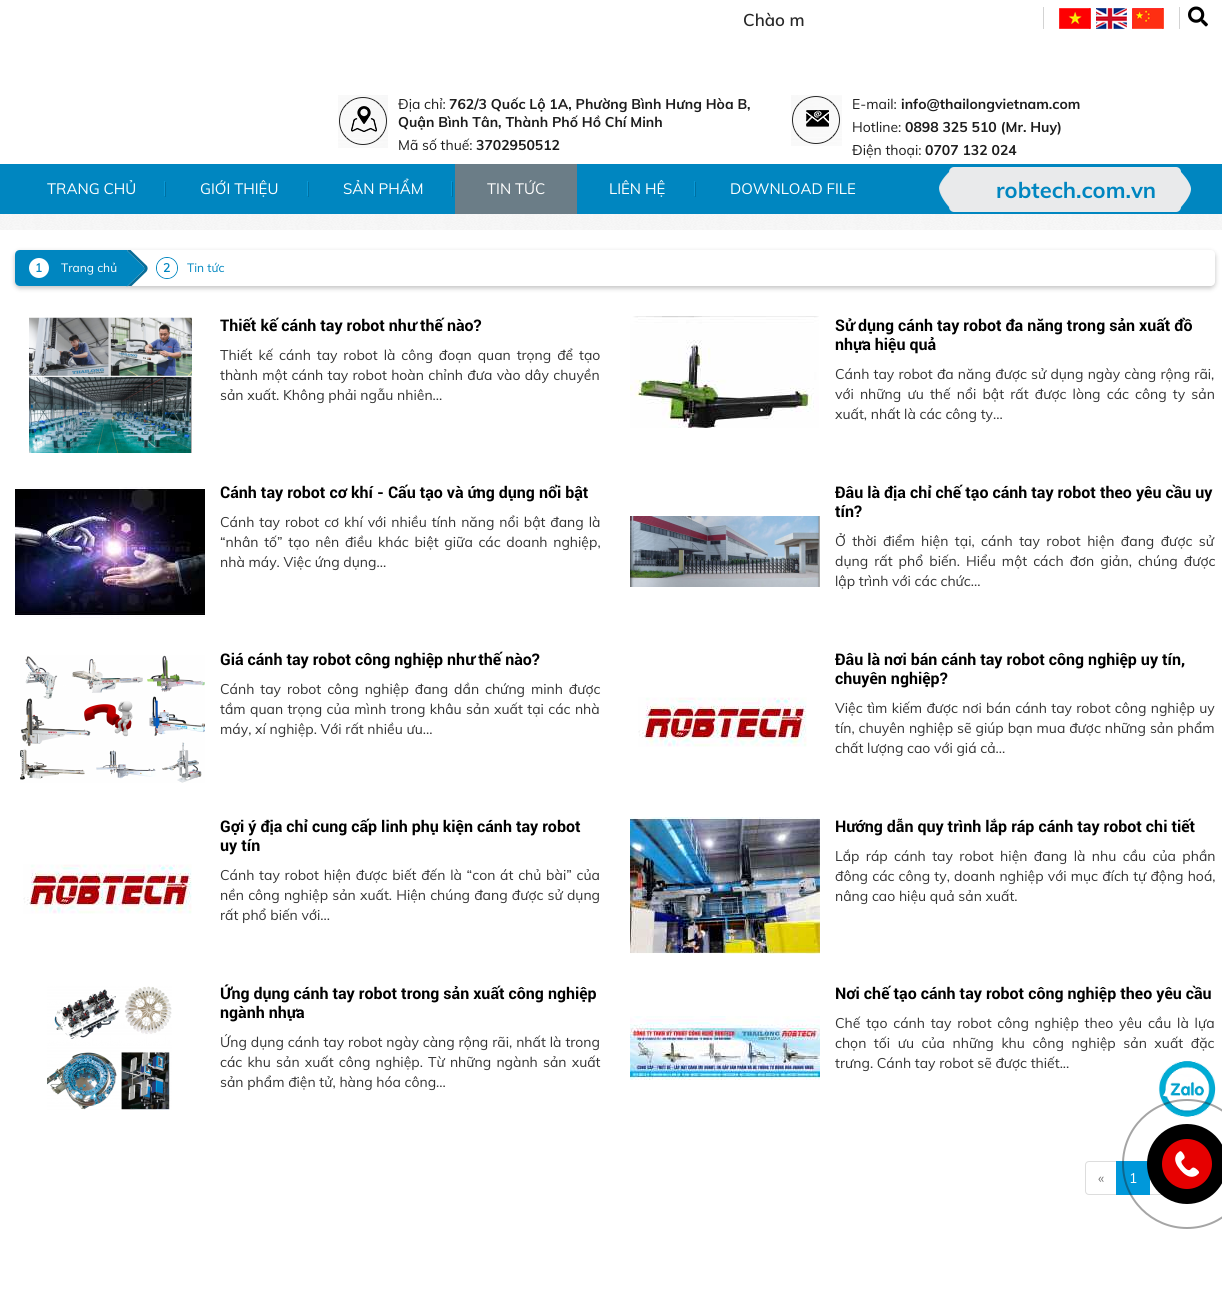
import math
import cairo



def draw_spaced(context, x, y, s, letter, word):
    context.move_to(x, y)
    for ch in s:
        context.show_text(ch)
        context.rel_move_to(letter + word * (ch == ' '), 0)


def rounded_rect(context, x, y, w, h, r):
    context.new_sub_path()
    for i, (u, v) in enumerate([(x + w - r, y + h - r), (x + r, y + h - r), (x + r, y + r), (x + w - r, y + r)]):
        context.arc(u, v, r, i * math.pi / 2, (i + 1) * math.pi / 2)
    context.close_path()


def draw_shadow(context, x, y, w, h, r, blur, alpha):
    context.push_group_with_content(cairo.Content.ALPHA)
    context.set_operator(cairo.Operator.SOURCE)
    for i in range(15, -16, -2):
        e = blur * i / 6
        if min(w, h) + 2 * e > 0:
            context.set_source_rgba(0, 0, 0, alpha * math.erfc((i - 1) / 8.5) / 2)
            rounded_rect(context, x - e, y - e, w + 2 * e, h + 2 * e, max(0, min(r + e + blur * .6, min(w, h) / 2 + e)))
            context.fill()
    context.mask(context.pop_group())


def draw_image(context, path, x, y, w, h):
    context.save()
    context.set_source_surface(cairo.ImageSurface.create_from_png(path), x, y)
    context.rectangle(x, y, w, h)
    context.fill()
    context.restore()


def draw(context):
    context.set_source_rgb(1, 1, 1)
    context.paint()
    context.set_source_rgb(211 / 255, 211 / 255, 211 / 255)
    context.rectangle(1043, 7, 1, 22)
    context.fill()
    draw_image(context, "images/1.png", 1059, 8, 32, 21)
    draw_image(context, "images/2.png", 1096, 8, 31, 21)
    draw_image(context, "images/3.png", 1132, 8, 32, 21)
    context.rectangle(1179, 7, 1, 22)
    context.fill()
    draw_image(context, "images/4.png", 1188, 6, 20, 21)
    draw_image(context, "images/5.png", 338, 95, 50, 53)
    draw_image(context, "images/6.png", 791, 95, 51, 51)
    context.set_source_rgb(0, 134 / 255, 192 / 255)
    context.rectangle(0, 164, 1222, 50)
    context.fill()
    draw_image(context, "images/7.png", 164, 181, 2, 16)
    draw_image(context, "images/7.png", 307, 181, 2, 16)
    draw_image(context, "images/7.png", 451, 181, 2, 16)
    context.set_source_rgb(107 / 255, 125 / 255, 135 / 255)
    context.rectangle(455, 164, 122, 50)
    context.fill()
    draw_image(context, "images/7.png", 694, 181, 2, 16)
    draw_image(context, "images/8.png", 939, 167, 252, 45)
    draw_image(context, "images/9.png", 0, 214, 1222, 16)
    context.save()
    context.set_fill_rule(cairo.FillRule.EVEN_ODD)
    context.new_path()
    context.move_to(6, 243)
    context.line_to(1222, 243)
    context.line_to(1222, 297)
    context.line_to(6, 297)
    context.close_path()
    context.move_to(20, 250)
    context.line_to(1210, 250)
    context.curve_to(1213, 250, 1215, 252, 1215, 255)
    context.line_to(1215, 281)
    context.curve_to(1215, 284, 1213, 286, 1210, 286)
    context.line_to(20, 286)
    context.curve_to(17, 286, 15, 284, 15, 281)
    context.line_to(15, 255)
    context.curve_to(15, 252, 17, 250, 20, 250)
    context.close_path()
    context.clip()
    context.set_source_rgb(0, 0, 0)
    draw_shadow(context, 15, 252, 1200, 36, 5, 2.5, 0.25)
    context.restore()
    context.set_source_rgb(0, 134 / 255, 192 / 255)
    context.new_path()
    context.move_to(20, 250)
    context.line_to(127, 250)
    context.line_to(127, 286)
    context.line_to(20, 286)
    context.curve_to(17, 286, 15, 284, 15, 281)
    context.line_to(15, 255)
    context.curve_to(15, 252, 17, 250, 20, 250)
    context.close_path()
    context.fill()
    context.set_source_rgb(1, 1, 1)
    context.arc(39, 268, 10, 0, 2 * math.pi)
    context.fill()
    context.set_source_rgb(9 / 255, 109 / 255, 152 / 255)
    context.new_path()
    context.move_to(127, 250.5)
    context.line_to(143.5, 266.5)
    context.curve_to(144.5, 267.5, 144.5, 269.5, 143.5, 270.5)
    context.line_to(127.5, 286)
    context.line_to(131.5, 286)
    context.line_to(146.5, 271.5)
    context.curve_to(148, 269.5, 148, 267, 146.5, 265.5)
    context.line_to(130.5, 250)
    context.line_to(127.5, 250)
    context.close_path()
    context.fill()
    context.set_source_rgb(0, 134 / 255, 192 / 255)
    context.new_path()
    context.move_to(127, 250.5)
    context.line_to(143.5, 266.5)
    context.curve_to(144.5, 267.5, 144.5, 269.5, 143.5, 270.5)
    context.line_to(127, 286.5)
    context.curve_to(117, 276.5, 117, 260.5, 127, 250.5)
    context.close_path()
    context.fill()
    context.arc(167, 268, 10.5, 0, 2 * math.pi)
    context.set_line_width(1)
    context.stroke()
    context.set_source_rgb(1, 1, 1)
    context.arc(167, 268, 10, 0, 2 * math.pi)
    context.fill()
    draw_image(context, "images/10.png", 29, 317, 163, 136)
    draw_image(context, "images/11.png", 630, 316, 189, 112)
    draw_image(context, "images/12.png", 15, 487, 190, 132)
    draw_image(context, "images/13.png", 630, 516, 190, 71)
    draw_image(context, "images/14.png", 20, 655, 185, 128)
    draw_image(context, "images/15.png", 638, 697, 169, 50)
    draw_image(context, "images/15.png", 23, 864, 169, 50)
    draw_image(context, "images/16.png", 630, 817, 190, 137)
    draw_image(context, "images/17.png", 47, 986, 125, 124)
    draw_image(context, "images/18.png", 630, 1016, 190, 64)
    context.new_path()
    context.move_to(1089, 1161.5)
    context.line_to(1116.5, 1161.5)
    context.line_to(1116.5, 1194.5)
    context.line_to(1089, 1194.5)
    context.curve_to(1087, 1194.5, 1085.5, 1193, 1085.5, 1191)
    context.line_to(1085.5, 1165)
    context.curve_to(1085.5, 1163, 1087, 1161.5, 1089, 1161.5)
    context.close_path()
    context.set_source_rgb(221 / 255, 221 / 255, 221 / 255)
    context.stroke()
    context.rectangle(1149.5, 1161.5, 34, 33)
    context.stroke()
    context.set_source_rgb(0, 152 / 255, 218 / 255)
    context.rectangle(1116, 1161, 34, 34)
    context.fill()
    context.new_path()
    context.move_to(1183.5, 1161.5)
    context.line_to(1211, 1161.5)
    context.curve_to(1213, 1161.5, 1214.5, 1163, 1214.5, 1165)
    context.line_to(1214.5, 1191)
    context.curve_to(1214.5, 1193, 1213, 1194.5, 1211, 1194.5)
    context.line_to(1183.5, 1194.5)
    context.close_path()
    context.set_source_rgb(221 / 255, 221 / 255, 221 / 255)
    context.stroke()
    draw_image(context, "images/19.png", 1158, 1061, 58, 56)
    context.select_font_face("Muli SemiBold")
    context.set_font_size(17)
    context.set_source_rgb(40 / 255, 40 / 255, 40 / 255)
    context.move_to(743, 26)
    context.show_text("Chào m")
    context.select_font_face("Muli")
    context.set_font_size(14)
    context.set_source_rgb(28 / 255, 28 / 255, 28 / 255)
    context.move_to(398, 109)
    context.show_text("Địa chỉ:")
    context.select_font_face("Muli", cairo.FontSlant.NORMAL, cairo.FontWeight.BOLD)
    context.move_to(449, 109)
    context.show_text("762/3 Quốc Lộ 1A, Phường Bình Hưng Hòa B,")
    context.move_to(398, 127)
    context.show_text("Quận Bình Tân, Thành Phố Hồ Chí Minh")
    context.select_font_face("Muli")
    context.move_to(398, 150)
    context.show_text("Mã số thuế:")
    context.select_font_face("Muli", cairo.FontSlant.NORMAL, cairo.FontWeight.BOLD)
    context.move_to(476, 150)
    context.show_text("3702950512")
    context.select_font_face("Muli")
    context.move_to(852, 109)
    context.show_text("E-mail:")
    context.select_font_face("Muli", cairo.FontSlant.NORMAL, cairo.FontWeight.BOLD)
    context.move_to(901, 109)
    context.show_text("info@thailongvietnam.com")
    context.select_font_face("Muli")
    context.move_to(852, 132)
    context.show_text("Hotline:")
    context.select_font_face("Muli", cairo.FontSlant.NORMAL, cairo.FontWeight.BOLD)
    context.move_to(905, 132)
    context.show_text("0898 325 510 (Mr. Huy)")
    context.select_font_face("Muli")
    context.move_to(852, 155)
    context.show_text("Điện thoại:")
    context.select_font_face("Muli", cairo.FontSlant.NORMAL, cairo.FontWeight.BOLD)
    context.move_to(925, 155)
    context.show_text("0707 132 024")
    context.select_font_face("Muli")
    context.set_font_size(15)
    context.set_source_rgb(1, 1, 1)
    context.move_to(47, 194)
    context.show_text("TRANG CHỦ")
    context.move_to(200, 194)
    context.show_text("GIỚI THIỆU")
    context.move_to(343, 194)
    context.show_text("SẢN PHẨM")
    context.move_to(487, 194)
    context.show_text("TIN TỨC")
    context.move_to(609, 194)
    context.show_text("LIÊN HỆ")
    context.move_to(730, 194)
    context.show_text("DOWNLOAD FILE")
    context.select_font_face("Muli", cairo.FontSlant.NORMAL, cairo.FontWeight.BOLD)
    context.set_font_size(22)
    context.set_source_rgb(0, 134 / 255, 192 / 255)
    context.move_to(996, 198)
    context.show_text("robtech.com.vn")
    context.select_font_face("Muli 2", cairo.FontSlant.NORMAL, cairo.FontWeight.BOLD)
    context.set_font_size(12)
    context.move_to(35, 272)
    context.show_text("1")
    context.select_font_face("Muli")
    context.set_source_rgb(1, 1, 1)
    context.move_to(61, 272)
    context.show_text("Trang chủ")
    context.select_font_face("Muli 2", cairo.FontSlant.NORMAL, cairo.FontWeight.BOLD)
    context.set_source_rgb(0, 134 / 255, 192 / 255)
    context.move_to(163, 272)
    context.show_text("2")
    context.select_font_face("Muli")
    context.move_to(187, 272)
    context.show_text("Tin tức")
    context.select_font_face("Roboto", cairo.FontSlant.NORMAL, cairo.FontWeight.BOLD)
    context.set_font_size(16)
    context.set_source_rgb(0, 0, 0)
    context.move_to(220, 331)
    context.show_text("Thiết kế cánh tay robot như thế nào?")
    context.select_font_face("Muli")
    context.set_font_size(14)
    context.set_source_rgb(51 / 255, 51 / 255, 51 / 255)
    draw_spaced(context, 220, 360, "Thiết kế cánh tay robot là công đoạn quan trọng để tạo", 0, 2.25)
    draw_spaced(context, 220, 380, "thành một cánh tay robot hoàn chỉnh đưa vào dây chuyền", 0, 0.6)
    context.move_to(220, 400)
    context.show_text("sản xuất. Không phải ngẫu nhiên...")
    context.select_font_face("Roboto", cairo.FontSlant.NORMAL, cairo.FontWeight.BOLD)
    context.set_font_size(16)
    context.set_source_rgb(0, 0, 0)
    context.move_to(835, 331)
    context.show_text("Sử dụng cánh tay robot đa năng trong sản xuất đồ")
    context.move_to(835, 350)
    context.show_text("nhựa hiệu quả")
    context.select_font_face("Muli")
    context.set_font_size(14)
    context.set_source_rgb(51 / 255, 51 / 255, 51 / 255)
    draw_spaced(context, 835, 379, "Cánh tay robot đa năng được sử dụng ngày càng rộng rãi,", 0, 0.5)
    draw_spaced(context, 835, 399, "với những ưu thế nổi bật rất được lòng các công ty sản", 0, 2.5)
    context.move_to(835, 419)
    context.show_text("xuất, nhất là các công ty...")
    context.select_font_face("Roboto", cairo.FontSlant.NORMAL, cairo.FontWeight.BOLD)
    context.set_font_size(16)
    context.set_source_rgb(0, 0, 0)
    context.move_to(220, 498)
    context.show_text("Cánh tay robot cơ khí - Cấu tạo và ứng dụng nổi bật")
    context.select_font_face("Muli")
    context.set_font_size(14)
    context.set_source_rgb(51 / 255, 51 / 255, 51 / 255)
    draw_spaced(context, 220, 527, "Cánh tay robot cơ khí với nhiều tính năng nổi bật đang là", 0, 1.25)
    draw_spaced(context, 220, 547, "“nhân tố” tạo nên điều khác biệt giữa các doanh nghiệp,", 0, 2)
    context.move_to(220, 567)
    context.show_text("nhà máy. Việc ứng dụng...")
    context.select_font_face("Roboto", cairo.FontSlant.NORMAL, cairo.FontWeight.BOLD)
    context.set_font_size(16)
    context.set_source_rgb(0, 0, 0)
    context.move_to(835, 498)
    context.show_text("Đâu là địa chỉ chế tạo cánh tay robot theo yêu cầu uy")
    context.move_to(835, 517)
    context.show_text("tín?")
    context.select_font_face("Muli")
    context.set_font_size(14)
    context.set_source_rgb(51 / 255, 51 / 255, 51 / 255)
    draw_spaced(context, 835, 546, "Ở thời điểm hiện tại, cánh tay robot hiện đang được sử", 0, 2.75)
    draw_spaced(context, 835, 566, "dụng rất phổ biến. Hiểu một cách đơn giản, chúng được", 0, 2.4)
    context.move_to(835, 586)
    context.show_text("lập trình với các chức...")
    context.select_font_face("Roboto", cairo.FontSlant.NORMAL, cairo.FontWeight.BOLD)
    context.set_font_size(16)
    context.set_source_rgb(0, 0, 0)
    context.move_to(220, 665)
    context.show_text("Giá cánh tay robot công nghiệp như thế nào?")
    context.select_font_face("Muli")
    context.set_font_size(14)
    context.set_source_rgb(51 / 255, 51 / 255, 51 / 255)
    draw_spaced(context, 220, 694, "Cánh tay robot công nghiệp đang dần chứng minh được", 0, 2.25)
    draw_spaced(context, 220, 714, "tầm quan trọng của mình trong khâu sản xuất tại các nhà", 0, 0.75)
    context.move_to(220, 734)
    context.show_text("máy, xí nghiệp. Với rất nhiều ưu...")
    context.select_font_face("Roboto", cairo.FontSlant.NORMAL, cairo.FontWeight.BOLD)
    context.set_font_size(16)
    context.set_source_rgb(0, 0, 0)
    context.move_to(835, 665)
    context.show_text("Đâu là nơi bán cánh tay robot công nghiệp uy tín,")
    context.move_to(835, 684)
    context.show_text("chuyên nghiệp?")
    context.select_font_face("Muli")
    context.set_font_size(14)
    context.set_source_rgb(51 / 255, 51 / 255, 51 / 255)
    draw_spaced(context, 835, 713, "Việc tìm kiếm được nơi bán cánh tay robot công nghiệp uy", 0, 0.6)
    draw_spaced(context, 835, 733, "tín, chuyên nghiệp sẽ giúp bạn mua được những sản phẩm", 0, 0.25)
    context.move_to(835, 753)
    context.show_text("chất lượng cao với giá cả...")
    context.select_font_face("Roboto", cairo.FontSlant.NORMAL, cairo.FontWeight.BOLD)
    context.set_font_size(16)
    context.set_source_rgb(0, 0, 0)
    context.move_to(220, 832)
    context.show_text("Gợi ý địa chỉ cung cấp linh phụ kiện cánh tay robot")
    context.move_to(220, 851)
    context.show_text("uy tín")
    context.select_font_face("Muli")
    context.set_font_size(14)
    context.set_source_rgb(51 / 255, 51 / 255, 51 / 255)
    draw_spaced(context, 220, 880, "Cánh tay robot hiện được biết đến là “con át chủ bài” của", 0, 1.1)
    draw_spaced(context, 220, 900, "nền công nghiệp sản xuất. Hiện chúng đang được sử dụng", 0, 0.5)
    context.move_to(220, 920)
    context.show_text("rất phổ biến với...")
    context.select_font_face("Roboto", cairo.FontSlant.NORMAL, cairo.FontWeight.BOLD)
    context.set_font_size(16)
    context.set_source_rgb(0, 0, 0)
    context.move_to(835, 832)
    context.show_text("Hướng dẫn quy trình lắp ráp cánh tay robot chi tiết")
    context.select_font_face("Muli")
    context.set_font_size(14)
    context.set_source_rgb(51 / 255, 51 / 255, 51 / 255)
    draw_spaced(context, 835, 861, "Lắp ráp cánh tay robot hiện đang là nhu cầu của phần", 0, 2.75)
    draw_spaced(context, 835, 881, "đông các công ty, doanh nghiệp với mục đích tự động hoá,", 0, 0.5)
    context.move_to(835, 901)
    context.show_text("nâng cao hiệu quả sản xuất.")
    context.select_font_face("Roboto", cairo.FontSlant.NORMAL, cairo.FontWeight.BOLD)
    context.set_font_size(16)
    context.set_source_rgb(0, 0, 0)
    context.move_to(220, 999)
    context.show_text("Ứng dụng cánh tay robot trong sản xuất công nghiệp")
    context.move_to(220, 1018)
    context.show_text("ngành nhựa")
    context.select_font_face("Muli")
    context.set_font_size(14)
    context.set_source_rgb(51 / 255, 51 / 255, 51 / 255)
    draw_spaced(context, 220, 1047, "Ứng dụng cánh tay robot ngày càng rộng rãi, nhất là trong", 0, 0.25)
    draw_spaced(context, 220, 1067, "các khu sản xuất công nghiệp. Từ những ngành sản xuất", 0, 1.5)
    context.move_to(220, 1087)
    context.show_text("sản phẩm điện tử, hàng hóa công...")
    context.select_font_face("Roboto", cairo.FontSlant.NORMAL, cairo.FontWeight.BOLD)
    context.set_font_size(16)
    context.set_source_rgb(0, 0, 0)
    context.move_to(835, 999)
    context.show_text("Nơi chế tạo cánh tay robot công nghiệp theo yêu cầu")
    context.select_font_face("Muli")
    context.set_font_size(14)
    context.set_source_rgb(51 / 255, 51 / 255, 51 / 255)
    draw_spaced(context, 835, 1028, "Chế tạo cánh tay robot công nghiệp theo yêu cầu là lựa", 0, 2.1)
    draw_spaced(context, 835, 1048, "chọn tối ưu của những khu công nghiệp sản xuất đặc", 0, 3.9)
    context.move_to(835, 1068)
    context.show_text("trưng. Cánh tay robot sẽ được thiết...")
    context.set_source_rgb(119 / 255, 119 / 255, 119 / 255)
    context.move_to(1098, 1183)
    context.show_text("«")
    context.set_source_rgb(1, 1, 1)
    context.move_to(1129, 1183)
    context.show_text("1")
    context.new_path()
    context.arc(1187, 1164, 64, 0, 2 * math.pi)
    context.set_source_rgba(30 / 255, 30 / 255, 30 / 255, 0.4)
    context.set_line_width(2)
    context.stroke()
    context.set_source_rgb(0, 0, 0)
    context.arc(1187, 1164, 40, 0, 2 * math.pi)
    context.fill()
    context.set_source_rgb(230 / 255, 0, 0)
    context.arc(1187, 1164, 25, 0, 2 * math.pi)
    context.fill()
    draw_image(context, "images/20.png", 1175, 1151, 24, 26)


surface = cairo.ImageSurface(cairo.Format.RGB24, 1222, 1299)
context = cairo.Context(surface)
options = cairo.FontOptions()
options.set_hint_metrics(cairo.HintMetrics.OFF)
options.set_hint_style(cairo.HintStyle.NONE)
context.set_font_options(options)
context.set_miter_limit(4)
draw(context)
surface.write_to_png("out.png")
